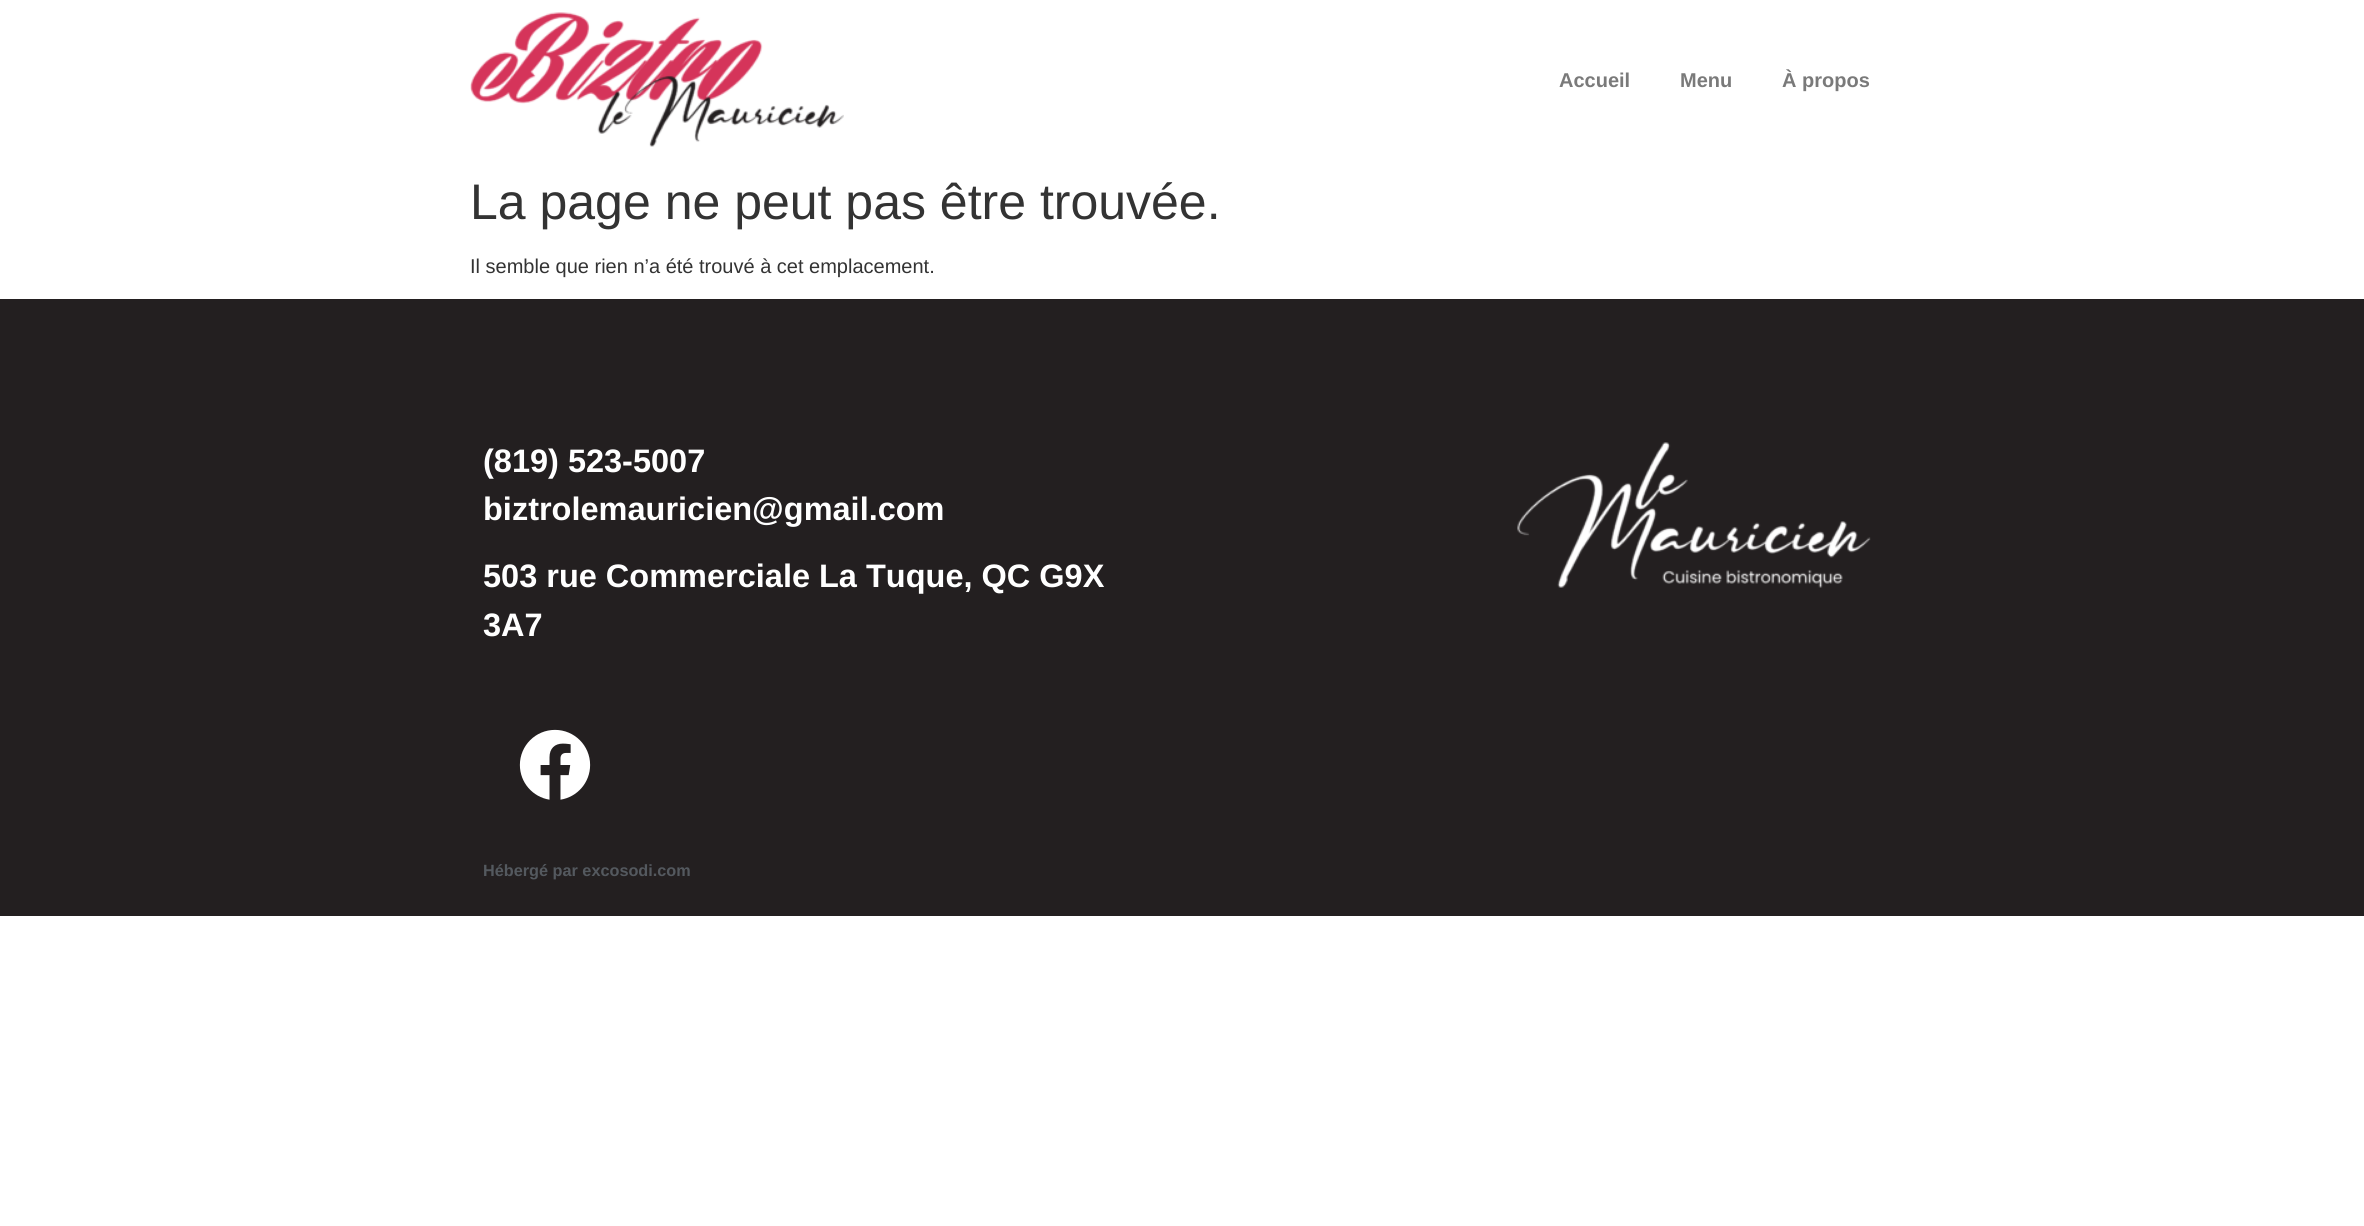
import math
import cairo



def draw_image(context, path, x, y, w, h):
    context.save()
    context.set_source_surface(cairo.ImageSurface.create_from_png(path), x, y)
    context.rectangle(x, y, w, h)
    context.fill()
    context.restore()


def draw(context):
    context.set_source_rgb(1, 1, 1)
    context.paint()
    draw_image(context, "images/1.png", 470, 12, 374, 135)
    context.set_source_rgb(35 / 255, 31 / 255, 32 / 255)
    context.rectangle(0, 299, 2364, 617)
    context.fill()
    draw_image(context, "images/2.png", 519, 729, 72, 71)
    draw_image(context, "images/3.png", 1517, 442, 354, 146)
    context.select_font_face("Liberation Sans", cairo.FontSlant.NORMAL, cairo.FontWeight.BOLD)
    context.set_font_size(20)
    context.set_source_rgb(122 / 255, 122 / 255, 122 / 255)
    context.move_to(1559, 87)
    context.show_text("Accueil")
    context.move_to(1680, 87)
    context.show_text("Menu")
    context.move_to(1782, 87)
    context.show_text("À propos")
    context.select_font_face("Liberation Sans")
    context.set_font_size(50)
    context.set_source_rgb(51 / 255, 51 / 255, 51 / 255)
    context.move_to(470, 219)
    context.show_text("La page ne peut pas être trouvée.")
    context.set_font_size(20)
    context.move_to(470, 273)
    context.show_text("Il semble que rien n’a été trouvé à cet emplacement.")
    context.select_font_face("Liberation Sans", cairo.FontSlant.NORMAL, cairo.FontWeight.BOLD)
    context.set_font_size(32.5)
    context.set_source_rgb(1, 1, 1)
    context.move_to(483, 472)
    context.show_text("(819) 523-5007")
    context.move_to(483, 520)
    context.show_text("biztrolemauricien@gmail.com")
    context.move_to(483, 587)
    context.show_text("503 rue Commerciale La Tuque, QC G9X")
    context.move_to(483, 636)
    context.show_text("3A7")
    context.set_font_size(16.25)
    context.set_source_rgb(84 / 255, 89 / 255, 95 / 255)
    context.move_to(483, 876)
    context.show_text("Hébergé par excosodi.com")


surface = cairo.ImageSurface(cairo.Format.RGB24, 2364, 1226)
context = cairo.Context(surface)
options = cairo.FontOptions()
options.set_hint_metrics(cairo.HintMetrics.OFF)
options.set_hint_style(cairo.HintStyle.NONE)
context.set_font_options(options)
context.set_miter_limit(4)
draw(context)
surface.write_to_png("out.png")
